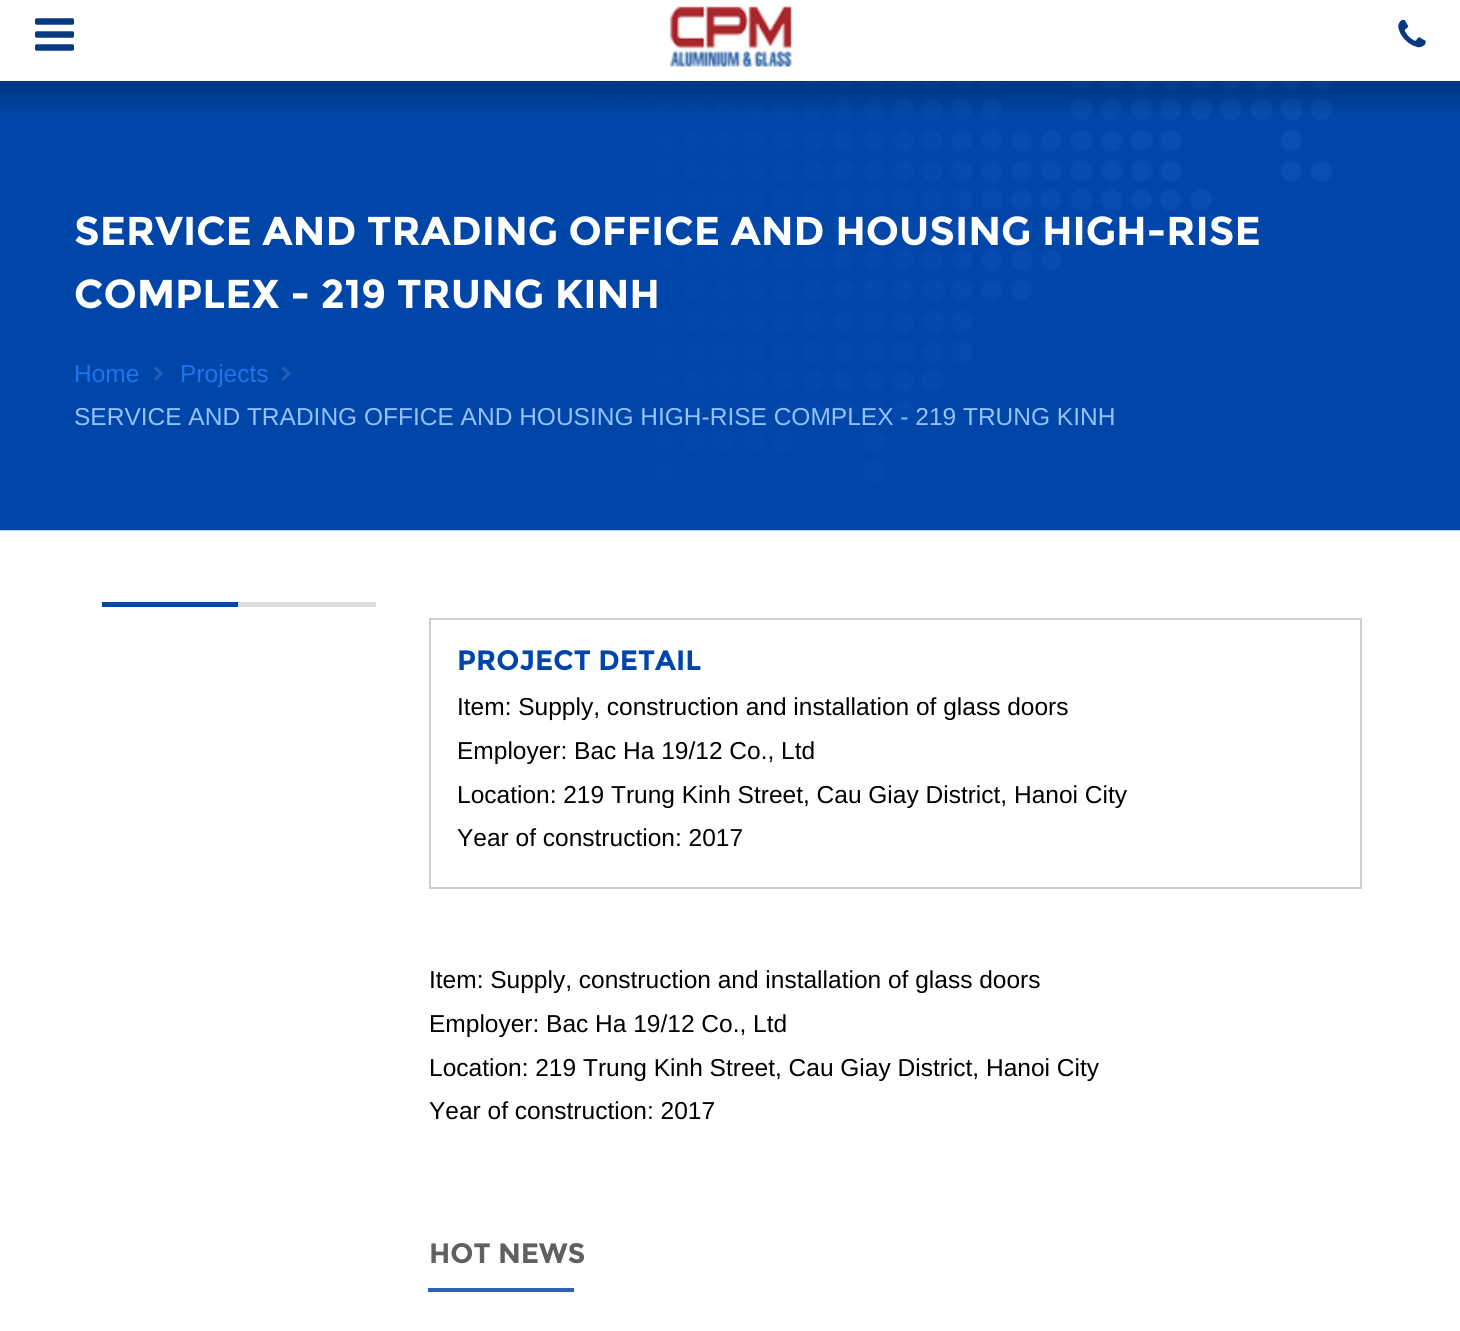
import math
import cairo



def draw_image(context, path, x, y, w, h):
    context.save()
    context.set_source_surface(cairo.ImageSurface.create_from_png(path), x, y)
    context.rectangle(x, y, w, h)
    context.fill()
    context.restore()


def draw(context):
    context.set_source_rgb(1, 1, 1)
    context.paint()
    draw_image(context, "images/1.png", 35, 18, 39, 33)
    draw_image(context, "images/2.png", 669, 6, 123, 61)
    draw_image(context, "images/3.png", 1398, 19, 28, 29)
    draw_image(context, "images/4.png", 0, 81, 1460, 450)
    draw_image(context, "images/5.png", 0, 81, 1460, 36)
    draw_image(context, "images/6.png", 154, 367, 9, 13)
    draw_image(context, "images/7.png", 281, 367, 10, 13)
    context.set_source_rgb(220 / 255, 220 / 255, 220 / 255)
    context.rectangle(238, 602, 138, 5)
    context.fill()
    context.set_source_rgb(0, 70 / 255, 168 / 255)
    context.rectangle(102, 602, 136, 5)
    context.fill()
    context.rectangle(430, 619, 931, 269)
    context.set_source_rgb(207 / 255, 207 / 255, 207 / 255)
    context.stroke()
    context.set_source_rgb(42 / 255, 100 / 255, 182 / 255)
    context.rectangle(428, 1288, 146, 4)
    context.fill()
    context.select_font_face("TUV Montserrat", cairo.FontSlant.NORMAL, cairo.FontWeight.BOLD)
    context.set_font_size(40.25)
    context.set_source_rgb(1, 1, 1)
    context.move_to(74, 245)
    context.show_text("SERVICE AND TRADING OFFICE AND HOUSING HIGH-RISE")
    context.move_to(74, 308)
    context.show_text("COMPLEX - 219 TRUNG KINH")
    context.select_font_face("Liberation Sans")
    context.set_font_size(24.5)
    context.set_source_rgb(31 / 255, 116 / 255, 234 / 255)
    context.move_to(74, 382)
    context.show_text("Home")
    context.move_to(180, 382)
    context.show_text("Projects")
    context.set_source_rgb(148 / 255, 193 / 255, 1)
    context.move_to(74, 425)
    context.show_text("SERVICE AND TRADING OFFICE AND HOUSING HIGH-RISE COMPLEX - 219 TRUNG KINH")
    context.select_font_face("TUV Montserrat", cairo.FontSlant.NORMAL, cairo.FontWeight.BOLD)
    context.set_font_size(28)
    context.set_source_rgb(0, 70 / 255, 169 / 255)
    context.move_to(457, 670)
    context.show_text("PROJECT DETAIL")
    context.select_font_face("Liberation Sans")
    context.set_font_size(24.5)
    context.set_source_rgb(0, 0, 0)
    context.move_to(457, 715)
    context.show_text("Item: Supply, construction and installation of glass doors")
    context.move_to(457, 759)
    context.show_text("Employer: Bac Ha 19/12 Co., Ltd")
    context.move_to(457, 803)
    context.show_text("Location: 219 Trung Kinh Street, Cau Giay District, Hanoi City")
    context.move_to(457, 846)
    context.show_text("Year of construction: 2017")
    context.move_to(429, 988)
    context.show_text("Item: Supply, construction and installation of glass doors")
    context.move_to(429, 1032)
    context.show_text("Employer: Bac Ha 19/12 Co., Ltd")
    context.move_to(429, 1076)
    context.show_text("Location: 219 Trung Kinh Street, Cau Giay District, Hanoi City")
    context.move_to(429, 1119)
    context.show_text("Year of construction: 2017")
    context.select_font_face("TUV Montserrat", cairo.FontSlant.NORMAL, cairo.FontWeight.BOLD)
    context.set_font_size(28)
    context.set_source_rgb(96 / 255, 96 / 255, 96 / 255)
    context.move_to(429, 1263)
    context.show_text("HOT NEWS")


surface = cairo.ImageSurface(cairo.Format.RGB24, 1460, 1331)
context = cairo.Context(surface)
options = cairo.FontOptions()
options.set_hint_metrics(cairo.HintMetrics.OFF)
options.set_hint_style(cairo.HintStyle.NONE)
context.set_font_options(options)
context.set_miter_limit(4)
draw(context)
surface.write_to_png("out.png")
